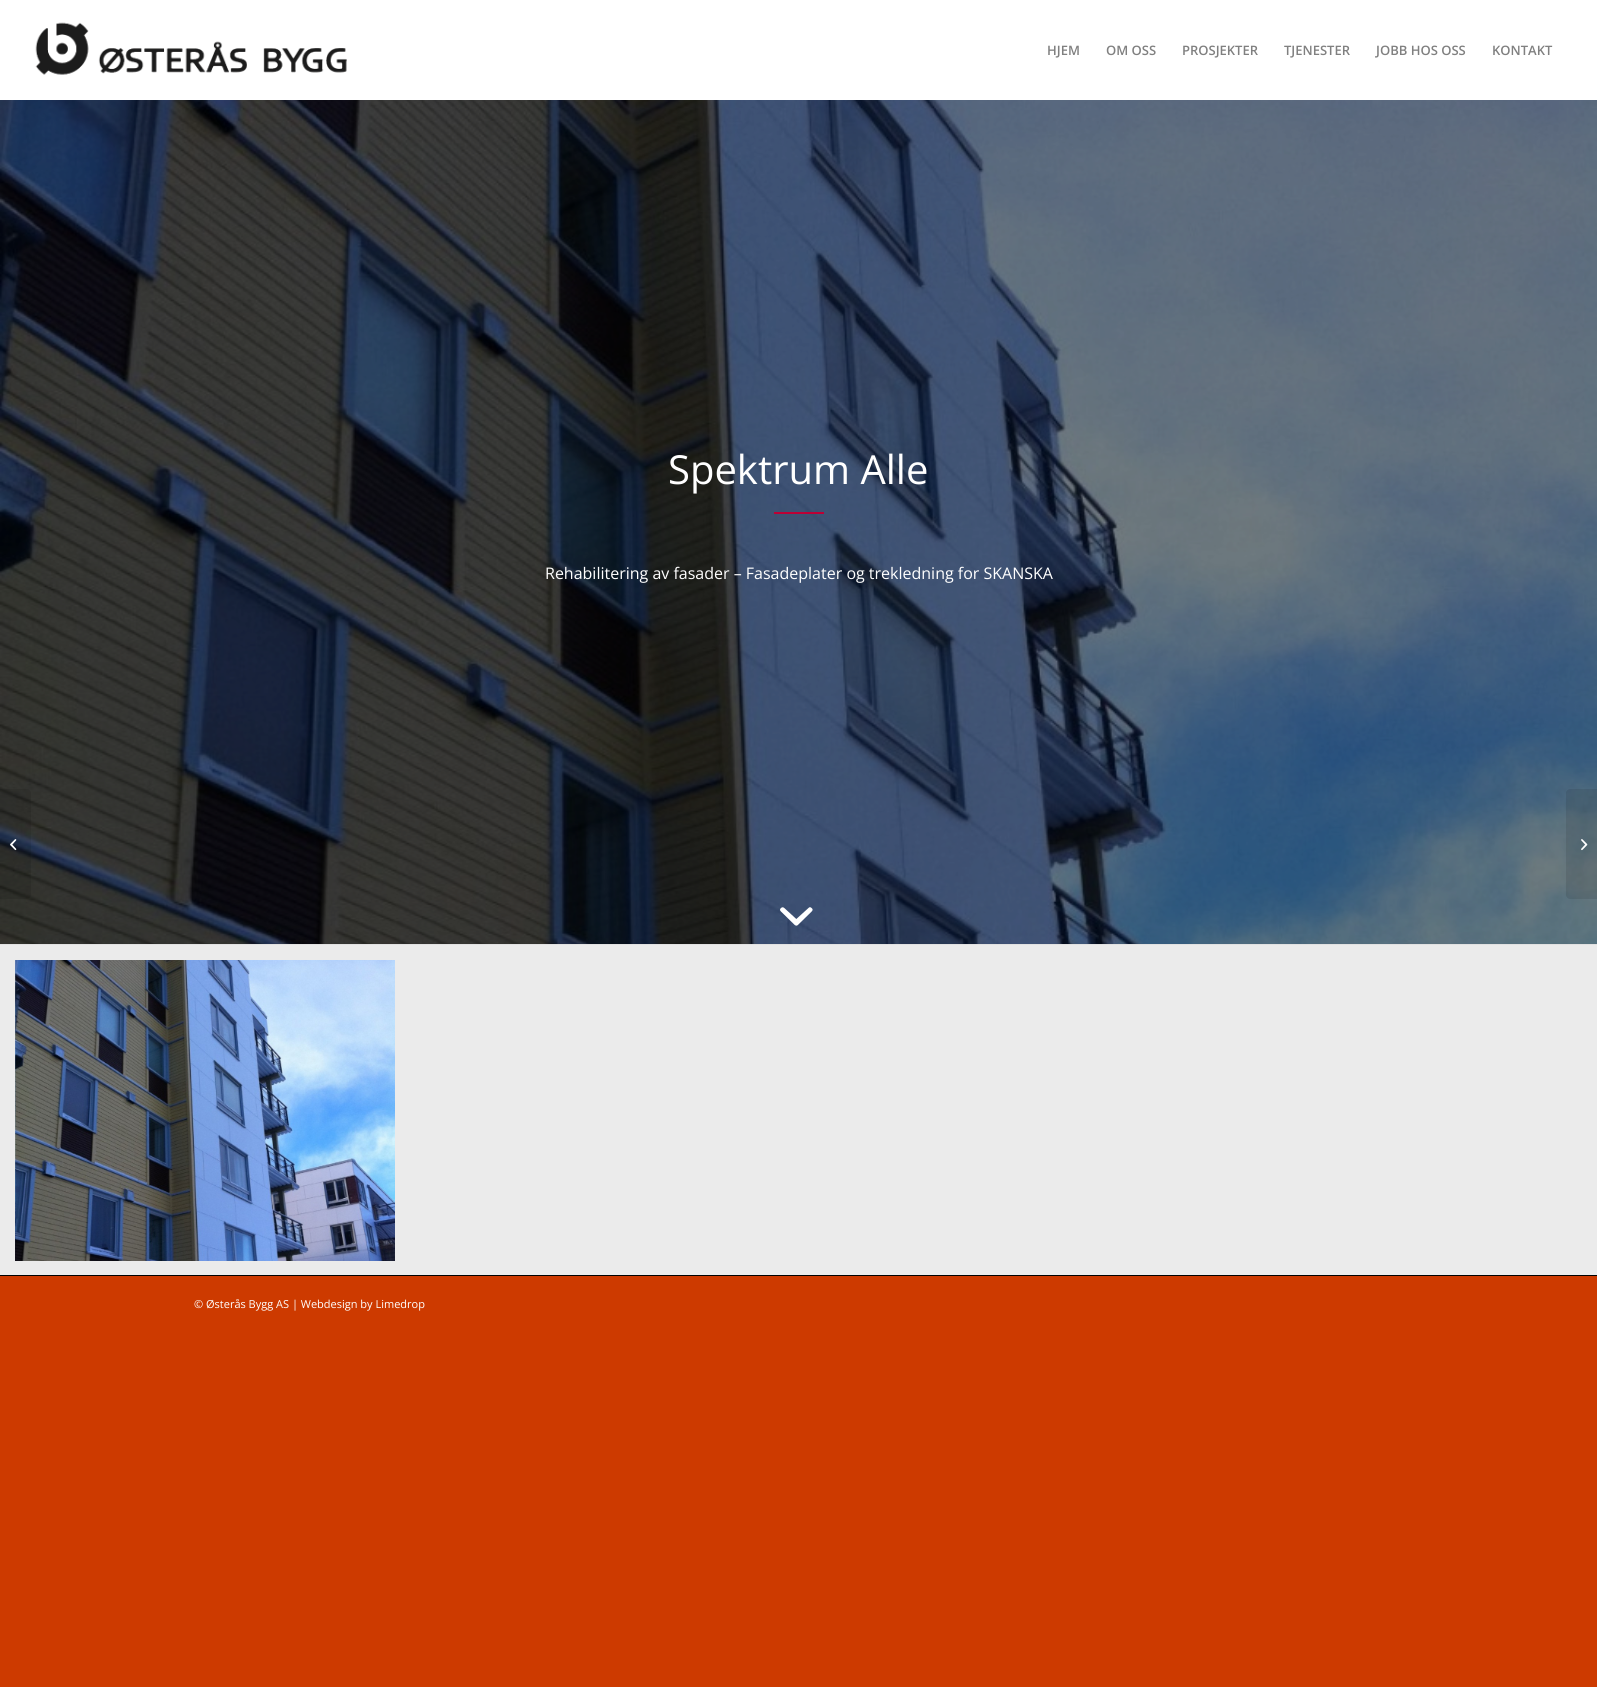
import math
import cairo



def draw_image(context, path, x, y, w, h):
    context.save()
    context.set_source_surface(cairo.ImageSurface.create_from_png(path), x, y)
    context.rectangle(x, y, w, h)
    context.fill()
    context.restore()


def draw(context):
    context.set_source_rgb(205 / 255, 58 / 255, 0)
    context.paint()
    context.set_source_rgb(1, 1, 1)
    context.rectangle(0, 0, 1597, 100)
    context.fill()
    draw_image(context, "images/1.png", 35, 22, 312, 53)
    draw_image(context, "images/3.png", 0, 100, 1597, 844)
    context.set_source_rgba(0, 0, 0, 0.1)
    context.new_path()
    context.move_to(0, 789)
    context.line_to(27, 789)
    context.curve_to(29, 789, 31, 791, 31, 793)
    context.line_to(31, 895)
    context.curve_to(31, 897, 29, 899, 27, 899)
    context.line_to(0, 899)
    context.close_path()
    context.fill()
    draw_image(context, "images/2.png", 10, 839, 7, 12)
    context.set_source_rgb(188 / 255, 0, 53 / 255)
    context.rectangle(774, 512, 50, 2)
    context.fill()
    draw_image(context, "images/4.png", 780, 907, 33, 19)
    context.set_source_rgb(225 / 255, 225 / 255, 225 / 255)
    context.rectangle(0, 944, 1597, 1)
    context.fill()
    context.set_source_rgb(235 / 255, 235 / 255, 235 / 255)
    context.rectangle(0, 945, 1597, 330)
    context.fill()
    draw_image(context, "images/5.png", 15, 960, 380, 301)
    context.set_source_rgb(0, 0, 0)
    context.rectangle(0, 1275, 1597, 1)
    context.fill()
    context.set_source_rgba(0, 0, 0, 0.1)
    context.new_path()
    context.move_to(1570, 789)
    context.line_to(1597, 789)
    context.line_to(1597, 899)
    context.line_to(1570, 899)
    context.curve_to(1568, 899, 1566, 897, 1566, 895)
    context.line_to(1566, 793)
    context.curve_to(1566, 791, 1568, 789, 1570, 789)
    context.close_path()
    context.fill()
    draw_image(context, "images/6.png", 1581, 839, 7, 12)
    context.select_font_face("Open Sans SemiBold")
    context.set_font_size(13)
    context.set_source_rgb(128 / 255, 128 / 255, 128 / 255)
    context.move_to(1047, 55)
    context.show_text("HJEM")
    context.move_to(1106, 55)
    context.show_text("OM OSS")
    context.move_to(1182, 55)
    context.show_text("PROSJEKTER")
    context.move_to(1284, 55)
    context.show_text("TJENESTER")
    context.move_to(1376, 55)
    context.show_text("JOBB HOS OSS")
    context.move_to(1492, 55)
    context.show_text("KONTAKT")
    context.select_font_face("Open Sans")
    context.set_font_size(40)
    context.set_source_rgb(1, 1, 1)
    context.move_to(668, 484)
    context.show_text("Spektrum Alle")
    context.set_font_size(16)
    context.move_to(545, 579)
    context.show_text("Rehabilitering av fasader – Fasadeplater og trekledning for SKANSKA")
    context.set_font_size(11)
    context.move_to(194, 1308)
    context.show_text("© Østerås Bygg AS | Webdesign by Limedrop")


surface = cairo.ImageSurface(cairo.Format.RGB24, 1597, 1687)
context = cairo.Context(surface)
options = cairo.FontOptions()
options.set_hint_metrics(cairo.HintMetrics.OFF)
options.set_hint_style(cairo.HintStyle.NONE)
context.set_font_options(options)
context.set_miter_limit(4)
draw(context)
surface.write_to_png("out.png")
